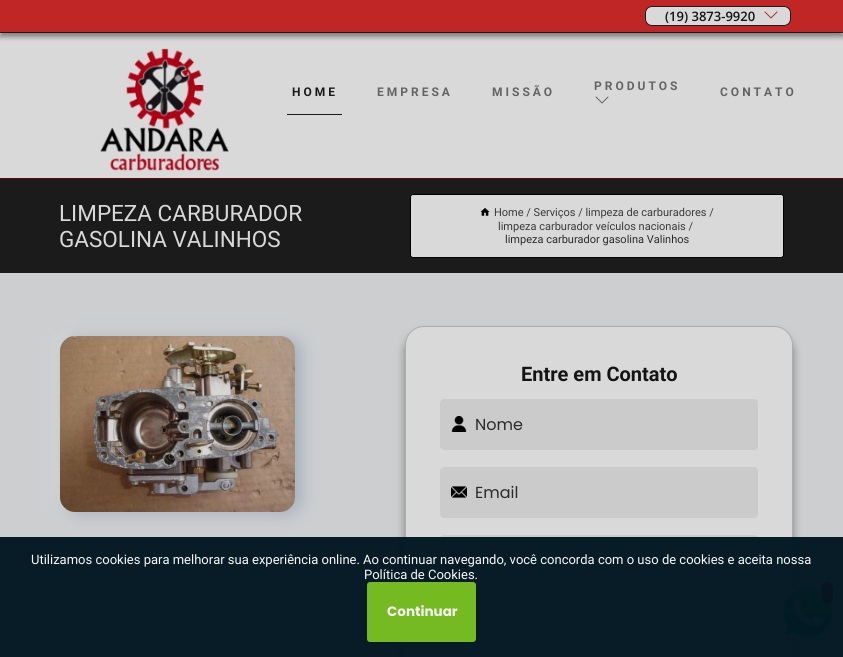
import math
import cairo



def draw_spaced(context, x, y, s, letter, word):
    context.move_to(x, y)
    for ch in s:
        context.show_text(ch)
        context.rel_move_to(letter + word * (ch == ' '), 0)


def rounded_rect(context, x, y, w, h, r):
    context.new_sub_path()
    for i, (u, v) in enumerate([(x + w - r, y + h - r), (x + r, y + h - r), (x + r, y + r), (x + w - r, y + r)]):
        context.arc(u, v, r, i * math.pi / 2, (i + 1) * math.pi / 2)
    context.close_path()


def draw_shadow(context, x, y, w, h, r, blur, alpha):
    context.push_group_with_content(cairo.Content.ALPHA)
    context.set_operator(cairo.Operator.SOURCE)
    for i in range(15, -16, -2):
        e = blur * i / 6
        if min(w, h) + 2 * e > 0:
            context.set_source_rgba(0, 0, 0, alpha * math.erfc((i - 1) / 8.5) / 2)
            rounded_rect(context, x - e, y - e, w + 2 * e, h + 2 * e, max(0, min(r + e + blur * .6, min(w, h) / 2 + e)))
            context.fill()
    context.mask(context.pop_group())


def draw_image(context, path, x, y, w, h):
    context.save()
    context.set_source_surface(cairo.ImageSurface.create_from_png(path), x, y)
    context.rectangle(x, y, w, h)
    context.fill()
    context.restore()


def draw(context):
    context.set_source_rgb(204 / 255, 206 / 255, 208 / 255)
    context.paint()
    context.set_source_rgb(217 / 255, 217 / 255, 217 / 255)
    context.rectangle(0, 33, 843, 145)
    context.fill()
    context.set_source_rgb(0, 0, 0)
    draw_shadow(context, 0, 4, 843, 33, 0, 2.5, 0.4)
    context.set_source_rgb(192 / 255, 38 / 255, 37 / 255)
    context.rectangle(0, 0, 843, 32)
    context.fill()
    context.set_source_rgb(27 / 255, 27 / 255, 27 / 255)
    context.rectangle(0, 32, 843, 1)
    context.fill()
    context.set_source_rgb(217 / 255, 217 / 255, 217 / 255)
    rounded_rect(context, 645.5, 6.5, 145, 19, 6.5)
    context.fill_preserve()
    context.set_source_rgb(27 / 255, 27 / 255, 27 / 255)
    context.set_line_width(1)
    context.stroke()
    draw_image(context, "images/1.png", 764, 11, 14, 8)
    draw_image(context, "images/2.png", 100, 48, 129, 123)
    context.rectangle(287, 114, 55, 1)
    context.fill()
    draw_image(context, "images/3.png", 595, 96, 14, 8)
    context.rectangle(0, 179, 843, 94)
    context.fill()
    context.set_source_rgb(112 / 255, 2 / 255, 2 / 255)
    context.rectangle(0, 178, 843, 1)
    context.fill()
    context.set_source_rgb(217 / 255, 217 / 255, 217 / 255)
    rounded_rect(context, 410.5, 194.5, 373, 63, 2.5)
    context.fill_preserve()
    context.set_source_rgb(0, 0, 0)
    context.stroke()
    draw_image(context, "images/4.png", 480, 208, 10, 8)
    context.set_source_rgb(217 / 255, 217 / 255, 217 / 255)
    draw_shadow(context, 54, 334, 235, 176, 15, 8, 0.8)
    context.set_source_rgb(116 / 255, 140 / 255, 162 / 255)
    draw_shadow(context, 66, 338, 235, 176, 15, 8, 0.48)
    draw_image(context, "images/5.png", 60, 336, 235, 176)
    context.set_source_rgb(0, 0, 0)
    draw_shadow(context, 405, 333, 388, 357, 19, 4.5, 0.4)
    context.set_source_rgb(217 / 255, 217 / 255, 217 / 255)
    rounded_rect(context, 405.5, 326.5, 387, 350, 18.5)
    context.fill_preserve()
    context.set_source_rgb(173 / 255, 173 / 255, 173 / 255)
    context.stroke()
    context.set_source_rgb(203 / 255, 203 / 255, 203 / 255)
    rounded_rect(context, 440, 399, 318, 51, 4)
    context.fill()
    draw_image(context, "images/6.png", 451, 416, 16, 16)
    rounded_rect(context, 440, 467, 318, 51, 4)
    context.fill()
    draw_image(context, "images/7.png", 451, 486, 16, 12)
    rounded_rect(context, 440, 535, 318, 51, 4)
    context.fill()
    draw_image(context, "images/8.png", 451, 552, 16, 16)
    rounded_rect(context, 440, 603, 318, 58, 4)
    context.fill()
    draw_image(context, "images/9.png", 451, 620, 16, 15)
    draw_image(context, "images/10.png", 778, 583, 60, 60)
    context.set_source_rgb(188 / 255, 4 / 255, 4 / 255)
    rounded_rect(context, 821, 582, 12, 22, 6)
    context.fill()
    context.set_source_rgba(2 / 255, 23 / 255, 34 / 255, 0.97)
    context.rectangle(0, 537, 843, 120)
    context.fill()
    context.set_source_rgba(120 / 255, 190 / 255, 32 / 255, 0.97)
    rounded_rect(context, 367, 582, 109, 60, 3)
    context.fill()
    context.select_font_face("Open Sans SemiBold")
    context.set_font_size(13)
    context.set_source_rgb(20 / 255, 20 / 255, 20 / 255)
    context.move_to(665, 21)
    context.show_text("(19) 3873-9920")
    context.select_font_face("Roboto", cairo.FontSlant.NORMAL, cairo.FontWeight.BOLD)
    context.set_font_size(12)
    context.set_source_rgb(27 / 255, 27 / 255, 27 / 255)
    draw_spaced(context, 292, 96, "HOME", 3, 0)
    context.set_source_rgb(100 / 255, 100 / 255, 100 / 255)
    draw_spaced(context, 377, 96, "EMPRESA", 3, 0)
    draw_spaced(context, 492, 96, "MISSÃO", 3, 0)
    draw_spaced(context, 594, 90, "PRODUTOS", 3, 0)
    draw_spaced(context, 720, 96, "CONTATO", 3, 0)
    context.select_font_face("Roboto")
    context.set_font_size(22.5)
    context.set_source_rgb(217 / 255, 217 / 255, 217 / 255)
    context.move_to(59, 221)
    context.show_text("LIMPEZA CARBURADOR")
    context.move_to(59, 247)
    context.show_text("GASOLINA VALINHOS")
    context.set_font_size(11)
    context.set_source_rgb(58 / 255, 58 / 255, 58 / 255)
    context.move_to(494, 216)
    context.show_text("Home / Serviços / limpeza de carburadores /")
    context.move_to(498, 230)
    context.show_text("limpeza carburador veículos nacionais /")
    context.set_source_rgb(43 / 255, 43 / 255, 43 / 255)
    context.move_to(505, 243)
    context.show_text("limpeza carburador gasolina Valinhos")
    context.select_font_face("Roboto", cairo.FontSlant.NORMAL, cairo.FontWeight.BOLD)
    context.set_font_size(20)
    context.set_source_rgb(20 / 255, 20 / 255, 20 / 255)
    context.move_to(521, 381)
    context.show_text("Entre em Contato")
    context.select_font_face("Poppins")
    context.set_font_size(16)
    context.set_source_rgb(43 / 255, 43 / 255, 43 / 255)
    context.move_to(475, 430)
    context.show_text("Nome")
    context.move_to(475, 498)
    context.show_text("Email")
    context.select_font_face("Roboto")
    context.set_font_size(13)
    context.set_source_rgb(248 / 255, 248 / 255, 249 / 255)
    context.move_to(31, 564)
    context.show_text("Utilizamos cookies para melhorar sua experiência online. Ao continuar navegando, você concorda com o uso de cookies e aceita nossa")
    context.move_to(364, 579)
    context.show_text("Política de Cookies.")
    context.select_font_face("Poppins", cairo.FontSlant.NORMAL, cairo.FontWeight.BOLD)
    context.set_font_size(13.5)
    context.move_to(387, 616)
    context.show_text("Continuar")


surface = cairo.ImageSurface(cairo.Format.RGB24, 843, 657)
context = cairo.Context(surface)
options = cairo.FontOptions()
options.set_hint_metrics(cairo.HintMetrics.OFF)
options.set_hint_style(cairo.HintStyle.NONE)
context.set_font_options(options)
context.set_miter_limit(4)
draw(context)
surface.write_to_png("out.png")
